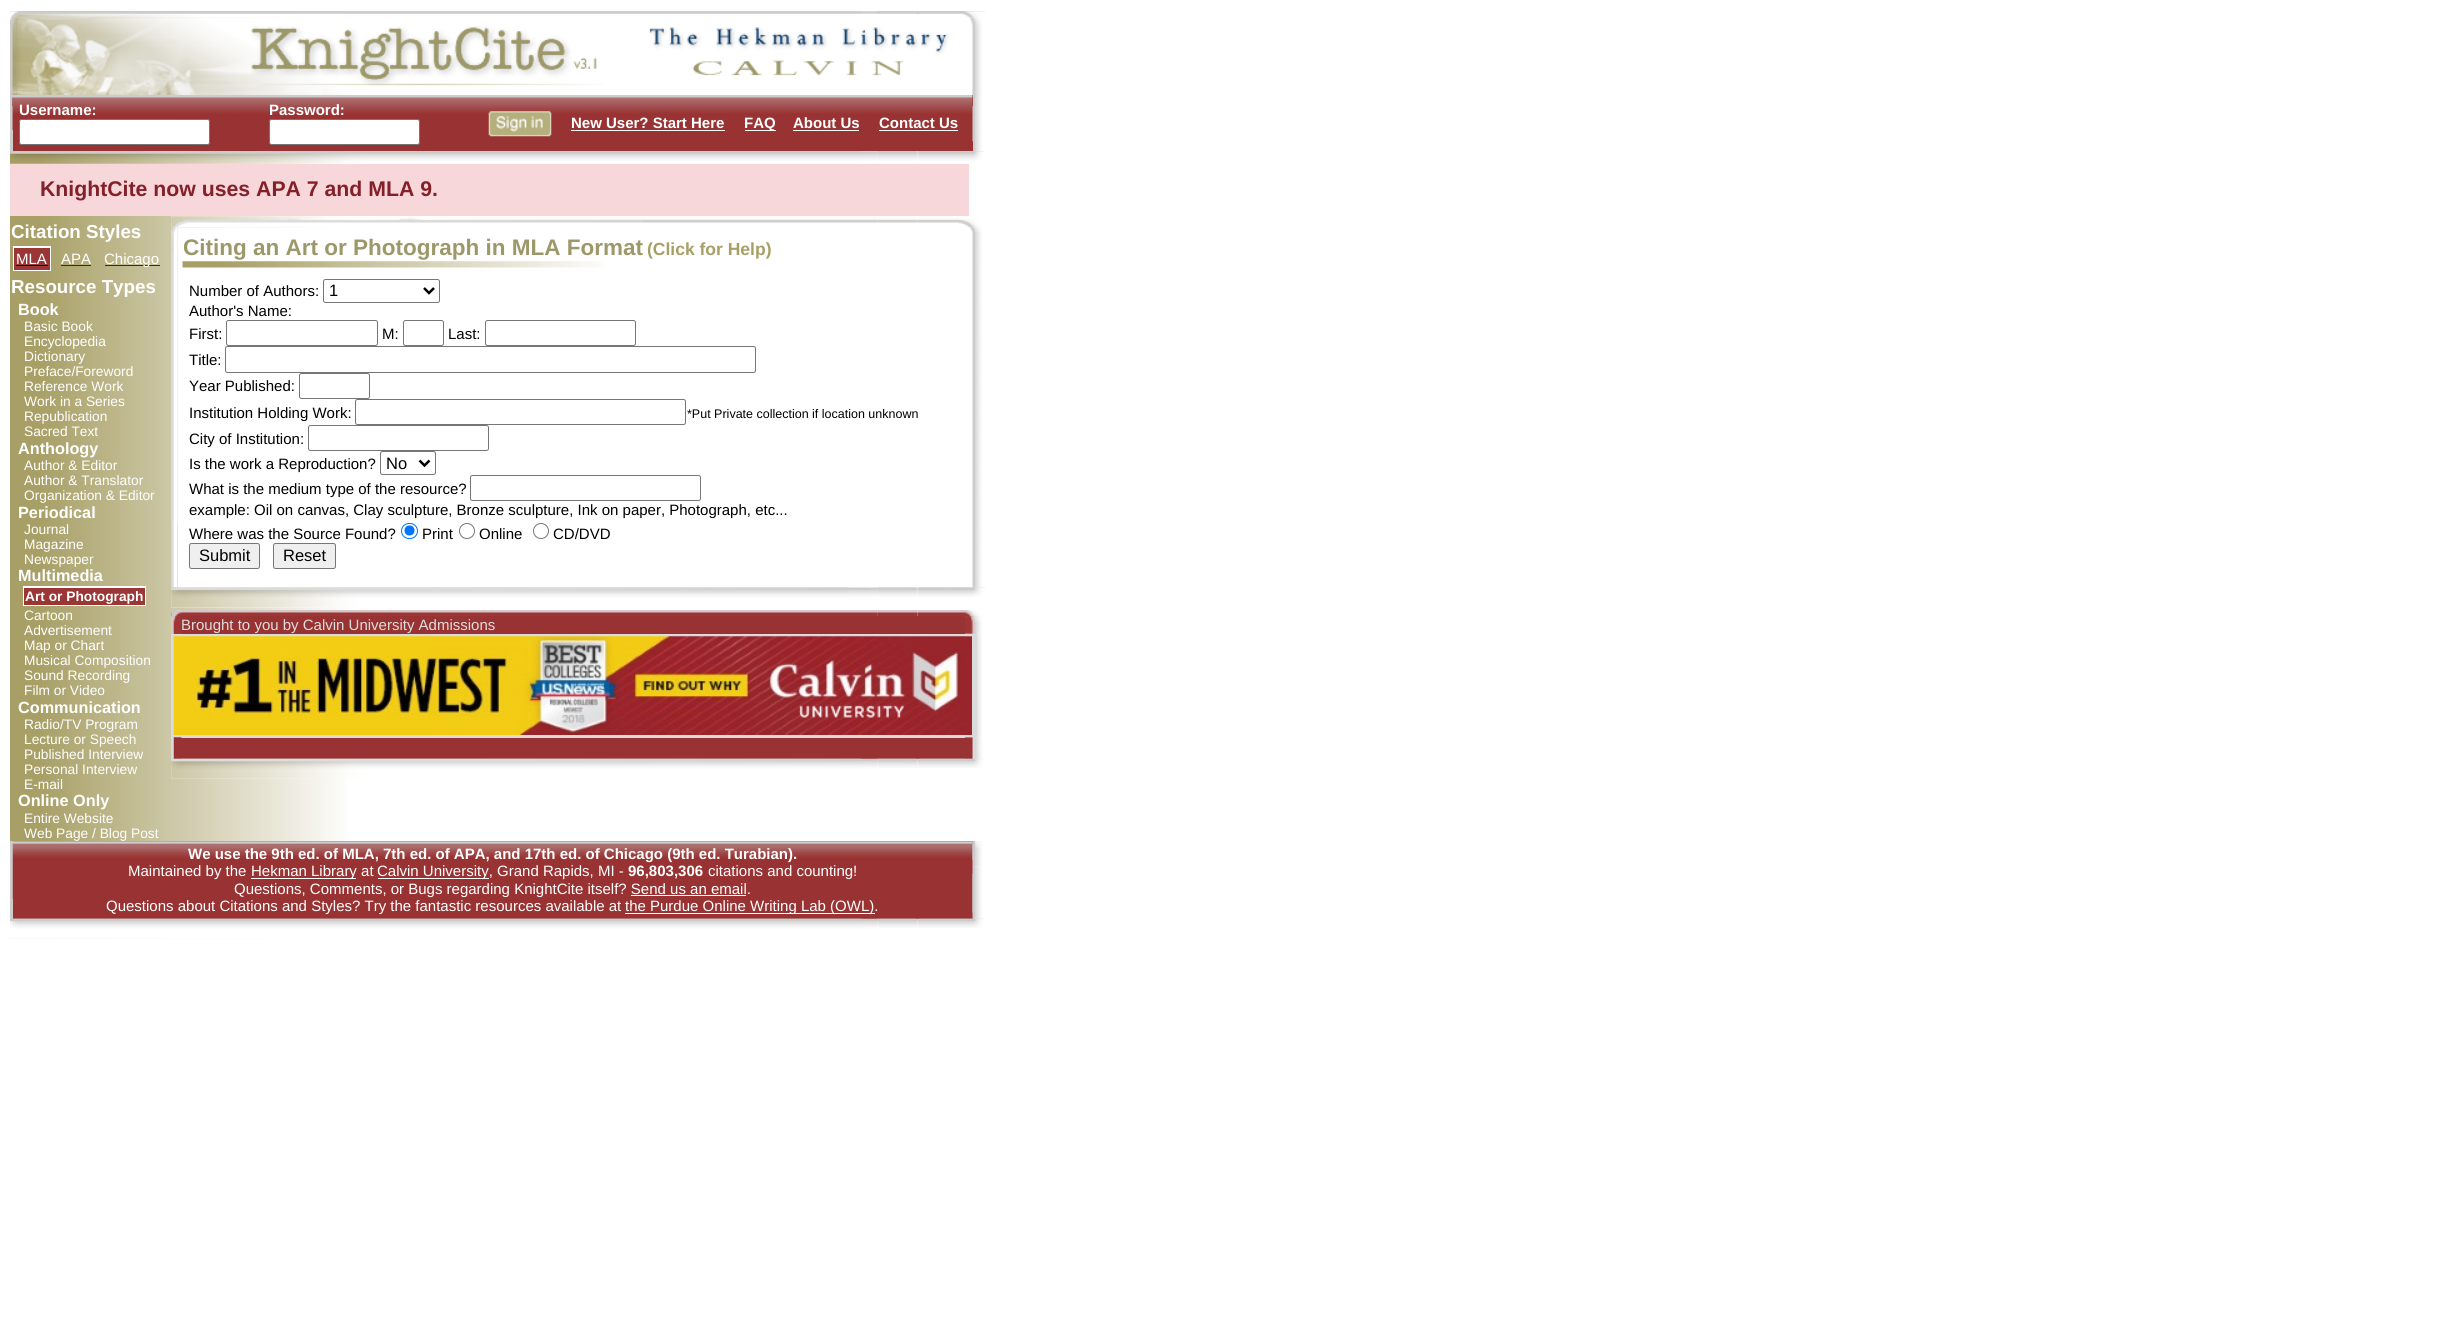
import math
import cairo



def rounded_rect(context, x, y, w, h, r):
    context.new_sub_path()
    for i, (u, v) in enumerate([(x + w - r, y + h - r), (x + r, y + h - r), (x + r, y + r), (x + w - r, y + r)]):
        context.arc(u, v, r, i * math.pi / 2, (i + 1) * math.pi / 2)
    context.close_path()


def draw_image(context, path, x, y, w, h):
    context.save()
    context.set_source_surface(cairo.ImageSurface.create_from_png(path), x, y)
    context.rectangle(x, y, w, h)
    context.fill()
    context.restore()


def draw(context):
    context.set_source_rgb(1, 1, 1)
    context.paint()
    draw_image(context, "images/1.png", 10, 11, 336, 928)
    draw_image(context, "images/2.png", 10, 11, 868, 7)
    draw_image(context, "images/3.png", 10, 11, 851, 7)
    context.set_source_rgb(204 / 255, 204 / 255, 204 / 255)
    context.rectangle(877, 11, 108, 3)
    context.fill()
    draw_image(context, "images/4.png", 877, 13, 39, 1)
    draw_image(context, "images/5.png", 919, 11, 66, 7)
    draw_image(context, "images/6.png", 10, 17, 7, 78)
    draw_image(context, "images/7.png", 16, 17, 588, 78)
    draw_image(context, "images/8.png", 649, 27, 300, 27)
    draw_image(context, "images/9.png", 692, 54, 248, 22)
    draw_image(context, "images/10.png", 969, 17, 13, 78)
    context.rectangle(10, 95, 3, 57)
    context.fill()
    draw_image(context, "images/12.png", 12, 95, 1, 35)
    draw_image(context, "images/13.png", 12, 95, 1, 35)
    draw_image(context, "images/16.png", 972, 95, 10, 57)
    context.set_source_rgb(153 / 255, 51 / 255, 51 / 255)
    context.rectangle(13, 95, 960, 56)
    context.fill()
    draw_image(context, "images/14.png", 12, 95, 961, 35)
    draw_image(context, "images/11.png", 12, 106, 1, 24)
    context.set_source_rgb(1, 1, 1)
    rounded_rect(context, 19.5, 119.5, 190, 25, 2)
    context.fill_preserve()
    context.set_source_rgb(118 / 255, 118 / 255, 118 / 255)
    context.set_line_width(1)
    context.stroke()
    context.set_source_rgb(1, 1, 1)
    rounded_rect(context, 269.5, 119.5, 150, 25, 2)
    context.fill_preserve()
    context.set_source_rgb(118 / 255, 118 / 255, 118 / 255)
    context.stroke()
    draw_image(context, "images/15.png", 488, 111, 64, 26)
    context.set_source_rgb(1, 1, 1)
    context.rectangle(571, 130, 154, 1)
    context.fill()
    context.rectangle(745, 130, 31, 1)
    context.fill()
    context.rectangle(793, 130, 66, 1)
    context.fill()
    context.rectangle(879, 130, 79, 1)
    context.fill()
    draw_image(context, "images/17.png", 972, 106, 1, 36)
    draw_image(context, "images/18.png", 10, 151, 868, 13)
    draw_image(context, "images/19.png", 10, 151, 851, 13)
    draw_image(context, "images/20.png", 877, 151, 41, 9)
    draw_image(context, "images/21.png", 877, 151, 39, 10)
    draw_image(context, "images/22.png", 917, 151, 68, 9)
    draw_image(context, "images/23.png", 919, 151, 66, 10)
    context.set_source_rgb(248 / 255, 215 / 255, 218 / 255)
    context.rectangle(10, 164, 959, 52)
    context.fill()
    context.set_source_rgb(1, 1, 1)
    context.rectangle(13, 246, 38, 25)
    context.fill()
    context.set_source_rgb(154 / 255, 54 / 255, 54 / 255)
    context.rectangle(14, 248, 36, 22)
    context.fill()
    context.set_source_rgb(0, 0, 0)
    context.rectangle(16, 265, 32, 1)
    context.fill()
    context.set_source_rgb(153 / 255, 0, 0)
    context.rectangle(61, 265, 30, 1)
    context.fill()
    context.rectangle(105, 265, 55, 1)
    context.fill()
    context.set_source_rgb(1, 1, 1)
    context.rectangle(23, 586, 123, 20)
    context.fill()
    context.set_source_rgb(154 / 255, 54 / 255, 54 / 255)
    context.rectangle(24, 588, 121, 17)
    context.fill()
    draw_image(context, "images/24.png", 171, 216, 707, 12)
    draw_image(context, "images/30.png", 171, 227, 7, 361)
    draw_image(context, "images/25.png", 171, 216, 472, 12)
    draw_image(context, "images/26.png", 877, 218, 41, 5)
    draw_image(context, "images/27.png", 877, 220, 1, 2)
    draw_image(context, "images/28.png", 917, 218, 42, 5)
    draw_image(context, "images/33.png", 972, 227, 10, 361)
    draw_image(context, "images/29.png", 959, 218, 26, 10)
    draw_image(context, "images/31.png", 171, 227, 7, 297)
    context.set_source_rgb(1, 1, 1)
    context.rectangle(178, 228, 168, 360)
    context.fill()
    draw_image(context, "images/32.png", 182, 261, 422, 7)
    rounded_rect(context, 323.5, 279.5, 116, 23, 2)
    context.set_source_rgb(118 / 255, 118 / 255, 118 / 255)
    context.stroke()
    context.new_path()
    context.move_to(424, 288)
    context.line_to(429, 293)
    context.line_to(434, 288)
    context.set_source_rgb(0, 0, 0)
    context.set_line_width(2.5)
    context.stroke()
    rounded_rect(context, 226.5, 320.5, 151, 25, 2)
    context.set_source_rgb(118 / 255, 118 / 255, 118 / 255)
    context.set_line_width(1)
    context.stroke()
    rounded_rect(context, 403.5, 320.5, 40, 25, 2)
    context.stroke()
    rounded_rect(context, 485.5, 320.5, 150, 25, 2)
    context.stroke()
    rounded_rect(context, 225.5, 346.5, 530, 26, 2)
    context.stroke()
    rounded_rect(context, 299.5, 373.5, 70, 25, 2)
    context.stroke()
    rounded_rect(context, 355.5, 399.5, 330, 25, 2)
    context.stroke()
    rounded_rect(context, 308.5, 425.5, 180, 25, 2)
    context.stroke()
    rounded_rect(context, 380.5, 451.5, 55, 23, 2)
    context.stroke()
    context.new_path()
    context.move_to(419.5, 460.5)
    context.line_to(424.5, 465.5)
    context.line_to(429.5, 460.5)
    context.set_source_rgb(0, 0, 0)
    context.set_line_width(2.5)
    context.stroke()
    rounded_rect(context, 470.5, 475.5, 230, 25, 2)
    context.set_source_rgb(118 / 255, 118 / 255, 118 / 255)
    context.set_line_width(1)
    context.stroke()
    rounded_rect(context, 401.5, 523.5, 16, 15, 7.5)
    context.set_source_rgb(0, 117 / 255, 1)
    context.stroke()
    context.arc(409.5, 530.5, 5, 0, 2 * math.pi)
    context.fill()
    context.arc(467, 531, 7.5, 0, 2 * math.pi)
    context.set_source_rgb(118 / 255, 118 / 255, 118 / 255)
    context.stroke()
    context.arc(541, 531, 7.5, 0, 2 * math.pi)
    context.stroke()
    context.set_source_rgb(239 / 255, 239 / 255, 239 / 255)
    rounded_rect(context, 189.5, 543.5, 70, 25, 2)
    context.fill_preserve()
    context.set_source_rgb(118 / 255, 118 / 255, 118 / 255)
    context.stroke()
    context.set_source_rgb(239 / 255, 239 / 255, 239 / 255)
    rounded_rect(context, 273.5, 543.5, 62, 25, 2)
    context.fill_preserve()
    context.set_source_rgb(118 / 255, 118 / 255, 118 / 255)
    context.stroke()
    draw_image(context, "images/34.png", 969, 227, 12, 5)
    draw_image(context, "images/35.png", 171, 587, 707, 21)
    draw_image(context, "images/36.png", 171, 587, 678, 21)
    draw_image(context, "images/37.png", 877, 587, 41, 10)
    draw_image(context, "images/38.png", 877, 587, 39, 6)
    draw_image(context, "images/39.png", 917, 587, 68, 10)
    draw_image(context, "images/40.png", 919, 587, 66, 10)
    draw_image(context, "images/41.png", 171, 610, 707, 7)
    draw_image(context, "images/47.png", 171, 616, 10, 9)
    draw_image(context, "images/43.png", 877, 610, 41, 6)
    draw_image(context, "images/45.png", 917, 610, 68, 7)
    context.set_source_rgb(153 / 255, 51 / 255, 51 / 255)
    context.rectangle(181, 616, 784, 18)
    context.fill()
    draw_image(context, "images/42.png", 171, 610, 11, 7)
    draw_image(context, "images/44.png", 877, 610, 1, 6)
    draw_image(context, "images/49.png", 965, 616, 20, 9)
    draw_image(context, "images/46.png", 964, 610, 21, 7)
    draw_image(context, "images/48.png", 171, 616, 10, 9)
    draw_image(context, "images/50.png", 965, 616, 20, 6)
    draw_image(context, "images/51.png", 171, 625, 10, 9)
    draw_image(context, "images/52.png", 171, 625, 10, 9)
    draw_image(context, "images/53.png", 965, 625, 17, 9)
    draw_image(context, "images/54.png", 965, 633, 13, 1)
    context.set_source_rgb(219 / 255, 219 / 255, 219 / 255)
    context.rectangle(171, 634, 794, 3)
    context.fill()
    draw_image(context, "images/57.png", 977, 636, 5, 99)
    draw_image(context, "images/55.png", 965, 633, 17, 4)
    context.rectangle(171, 636, 3, 99)
    context.fill()
    draw_image(context, "images/56.png", 173, 636, 799, 99)
    context.set_source_rgb(218 / 255, 218 / 255, 218 / 255)
    context.rectangle(972, 636, 5, 99)
    context.fill()
    context.set_source_rgb(219 / 255, 219 / 255, 219 / 255)
    context.rectangle(171, 735, 794, 3)
    context.fill()
    draw_image(context, "images/61.png", 965, 737, 17, 22)
    draw_image(context, "images/58.png", 965, 735, 17, 3)
    draw_image(context, "images/59.png", 171, 737, 11, 22)
    context.set_source_rgb(153 / 255, 51 / 255, 51 / 255)
    context.rectangle(181, 738, 784, 21)
    context.fill()
    draw_image(context, "images/63.png", 171, 758, 707, 21)
    draw_image(context, "images/60.png", 171, 737, 11, 22)
    draw_image(context, "images/65.png", 877, 758, 41, 10)
    draw_image(context, "images/67.png", 917, 758, 68, 10)
    draw_image(context, "images/62.png", 965, 737, 20, 22)
    draw_image(context, "images/64.png", 171, 758, 691, 21)
    draw_image(context, "images/66.png", 877, 758, 40, 5)
    draw_image(context, "images/68.png", 918, 758, 67, 10)
    context.set_source_rgb(204 / 255, 204 / 255, 204 / 255)
    context.rectangle(10, 841, 3, 78)
    context.fill()
    context.set_source_rgb(153 / 255, 51 / 255, 51 / 255)
    context.rectangle(13, 841, 960, 78)
    context.fill()
    draw_image(context, "images/70.png", 12, 841, 961, 58)
    draw_image(context, "images/69.png", 12, 843, 1, 56)
    context.set_source_rgb(1, 1, 1)
    context.rectangle(251, 878, 105, 1)
    context.fill()
    context.rectangle(378, 878, 111, 1)
    context.fill()
    context.rectangle(631, 895, 115, 1)
    context.fill()
    context.rectangle(625, 913, 250, 1)
    context.fill()
    draw_image(context, "images/71.png", 972, 841, 10, 26)
    draw_image(context, "images/72.png", 972, 841, 9, 19)
    draw_image(context, "images/73.png", 972, 866, 10, 53)
    draw_image(context, "images/74.png", 972, 873, 1, 40)
    draw_image(context, "images/75.png", 10, 918, 868, 21)
    draw_image(context, "images/76.png", 10, 918, 852, 21)
    draw_image(context, "images/77.png", 877, 918, 41, 10)
    draw_image(context, "images/78.png", 877, 918, 40, 5)
    draw_image(context, "images/79.png", 917, 918, 68, 10)
    draw_image(context, "images/80.png", 918, 918, 67, 10)
    context.select_font_face("Liberation Sans", cairo.FontSlant.NORMAL, cairo.FontWeight.BOLD)
    context.set_font_size(15)
    context.move_to(19, 115)
    context.show_text("Username:")
    context.move_to(269, 115)
    context.show_text("Password:")
    context.move_to(571, 128)
    context.show_text("New User? Start Here")
    context.move_to(744, 128)
    context.show_text("FAQ")
    context.move_to(793, 128)
    context.show_text("About Us")
    context.move_to(879, 128)
    context.show_text("Contact Us")
    context.set_font_size(21.25)
    context.set_source_rgb(132 / 255, 32 / 255, 41 / 255)
    context.move_to(40, 196)
    context.show_text("KnightCite now uses APA 7 and MLA 9.")
    context.set_font_size(18.75)
    context.set_source_rgb(1, 1, 1)
    context.move_to(11, 238)
    context.show_text("Citation Styles")
    context.select_font_face("Liberation Sans")
    context.set_font_size(15)
    context.move_to(16, 264)
    context.show_text("MLA")
    context.move_to(61, 264)
    context.show_text("APA")
    context.move_to(104, 264)
    context.show_text("Chicago")
    context.select_font_face("Liberation Sans", cairo.FontSlant.NORMAL, cairo.FontWeight.BOLD)
    context.set_font_size(18.75)
    context.move_to(11, 293)
    context.show_text("Resource Types")
    context.set_font_size(16.25)
    context.move_to(18, 315)
    context.show_text("Book")
    context.select_font_face("Liberation Sans")
    context.set_font_size(13.75)
    context.move_to(24, 331)
    context.show_text("Basic Book")
    context.move_to(24, 346)
    context.show_text("Encyclopedia")
    context.move_to(24, 361)
    context.show_text("Dictionary")
    context.move_to(24, 376)
    context.show_text("Preface/Foreword")
    context.move_to(24, 391)
    context.show_text("Reference Work")
    context.move_to(24, 406)
    context.show_text("Work in a Series")
    context.move_to(24, 421)
    context.show_text("Republication")
    context.move_to(24, 436)
    context.show_text("Sacred Text")
    context.select_font_face("Liberation Sans", cairo.FontSlant.NORMAL, cairo.FontWeight.BOLD)
    context.set_font_size(16.25)
    context.move_to(18, 454)
    context.show_text("Anthology")
    context.select_font_face("Liberation Sans")
    context.set_font_size(13.75)
    context.move_to(24, 470)
    context.show_text("Author & Editor")
    context.move_to(24, 485)
    context.show_text("Author & Translator")
    context.move_to(24, 500)
    context.show_text("Organization & Editor")
    context.select_font_face("Liberation Sans", cairo.FontSlant.NORMAL, cairo.FontWeight.BOLD)
    context.set_font_size(16.25)
    context.move_to(18, 518)
    context.show_text("Periodical")
    context.select_font_face("Liberation Sans")
    context.set_font_size(13.75)
    context.move_to(24, 534)
    context.show_text("Journal")
    context.move_to(24, 549)
    context.show_text("Magazine")
    context.move_to(24, 564)
    context.show_text("Newspaper")
    context.select_font_face("Liberation Sans", cairo.FontSlant.NORMAL, cairo.FontWeight.BOLD)
    context.set_font_size(16.25)
    context.move_to(18, 581)
    context.show_text("Multimedia")
    context.set_font_size(13.75)
    context.move_to(25, 601)
    context.show_text("Art or Photograph")
    context.select_font_face("Liberation Sans")
    context.move_to(24, 620)
    context.show_text("Cartoon")
    context.move_to(24, 635)
    context.show_text("Advertisement")
    context.move_to(24, 650)
    context.show_text("Map or Chart")
    context.move_to(24, 665)
    context.show_text("Musical Composition")
    context.move_to(24, 680)
    context.show_text("Sound Recording")
    context.move_to(24, 695)
    context.show_text("Film or Video")
    context.select_font_face("Liberation Sans", cairo.FontSlant.NORMAL, cairo.FontWeight.BOLD)
    context.set_font_size(16.25)
    context.move_to(18, 713)
    context.show_text("Communication")
    context.select_font_face("Liberation Sans")
    context.set_font_size(13.75)
    context.move_to(24, 729)
    context.show_text("Radio/TV Program")
    context.move_to(24, 744)
    context.show_text("Lecture or Speech")
    context.move_to(24, 759)
    context.show_text("Published Interview")
    context.move_to(24, 774)
    context.show_text("Personal Interview")
    context.move_to(24, 789)
    context.show_text("E-mail")
    context.select_font_face("Liberation Sans", cairo.FontSlant.NORMAL, cairo.FontWeight.BOLD)
    context.set_font_size(16.25)
    context.move_to(18, 806)
    context.show_text("Online Only")
    context.select_font_face("Liberation Sans")
    context.set_font_size(13.75)
    context.move_to(24, 823)
    context.show_text("Entire Website")
    context.move_to(24, 838)
    context.show_text("Web Page / Blog Post")
    context.select_font_face("Liberation Sans", cairo.FontSlant.NORMAL, cairo.FontWeight.BOLD)
    context.set_font_size(22.5)
    context.set_source_rgb(157 / 255, 152 / 255, 106 / 255)
    context.move_to(183, 255)
    context.show_text("Citing an Art or Photograph in MLA Format")
    context.set_font_size(17.5)
    context.set_source_rgb(168 / 255, 159 / 255, 102 / 255)
    context.move_to(647, 255)
    context.show_text("(Click for Help)")
    context.select_font_face("Liberation Sans")
    context.set_font_size(15)
    context.set_source_rgb(0, 0, 0)
    context.move_to(189, 296)
    context.show_text("Number of Authors:")
    context.set_font_size(16.5)
    context.move_to(329, 296)
    context.show_text("1")
    context.set_font_size(15)
    context.move_to(189, 316)
    context.show_text("Author's Name:")
    context.move_to(189, 339)
    context.show_text("First:")
    context.move_to(382, 339)
    context.show_text("M:")
    context.move_to(448, 339)
    context.show_text("Last:")
    context.move_to(189, 365)
    context.show_text("Title:")
    context.move_to(189, 391)
    context.show_text("Year Published:")
    context.move_to(189, 418)
    context.show_text("Institution Holding Work:")
    context.set_font_size(12.5)
    context.move_to(687, 418)
    context.show_text("*Put Private collection if location unknown")
    context.set_font_size(15)
    context.move_to(189, 444)
    context.show_text("City of Institution:")
    context.move_to(189, 469)
    context.show_text("Is the work a Reproduction?")
    context.set_font_size(16.5)
    context.move_to(386, 469)
    context.show_text("No")
    context.set_font_size(15)
    context.move_to(189, 494)
    context.show_text("What is the medium type of the resource?")
    context.move_to(189, 515)
    context.show_text("example: Oil on canvas, Clay sculpture, Bronze sculpture, Ink on paper, Photograph, etc...")
    context.move_to(189, 539)
    context.show_text("Where was the Source Found?")
    context.move_to(422, 539)
    context.show_text("Print")
    context.move_to(479, 539)
    context.show_text("Online")
    context.move_to(553, 539)
    context.show_text("CD/DVD")
    context.set_font_size(16.5)
    context.move_to(199, 561)
    context.show_text("Submit")
    context.move_to(283, 561)
    context.show_text("Reset")
    context.set_font_size(15)
    context.set_source_rgb(221 / 255, 221 / 255, 221 / 255)
    context.move_to(181, 630)
    context.show_text("Brought to you by Calvin University Admissions")
    context.select_font_face("Liberation Sans", cairo.FontSlant.NORMAL, cairo.FontWeight.BOLD)
    context.set_source_rgb(1, 1, 1)
    context.move_to(188, 859)
    context.show_text("We use the 9th ed. of MLA, 7th ed. of APA, and 17th ed. of Chicago (9th ed. Turabian).")
    context.select_font_face("Liberation Sans")
    context.move_to(128, 876)
    context.show_text("Maintained by the")
    context.move_to(251, 876)
    context.show_text("Hekman Library at")
    context.move_to(377, 876)
    context.show_text("Calvin University, Grand Rapids, MI -")
    context.select_font_face("Liberation Sans", cairo.FontSlant.NORMAL, cairo.FontWeight.BOLD)
    context.move_to(628, 876)
    context.show_text("96,803,306")
    context.select_font_face("Liberation Sans")
    context.move_to(708, 876)
    context.show_text("citations and counting!")
    context.move_to(234, 894)
    context.show_text("Questions, Comments, or Bugs regarding KnightCite itself? Send us an email.")
    context.move_to(106, 911)
    context.show_text("Questions about Citations and Styles? Try the fantastic resources available at")
    context.move_to(625, 911)
    context.show_text("the Purdue Online Writing Lab (OWL).")


surface = cairo.ImageSurface(cairo.Format.RGB24, 2442, 1333)
context = cairo.Context(surface)
options = cairo.FontOptions()
options.set_hint_metrics(cairo.HintMetrics.OFF)
options.set_hint_style(cairo.HintStyle.NONE)
context.set_font_options(options)
context.set_miter_limit(4)
draw(context)
surface.write_to_png("out.png")
